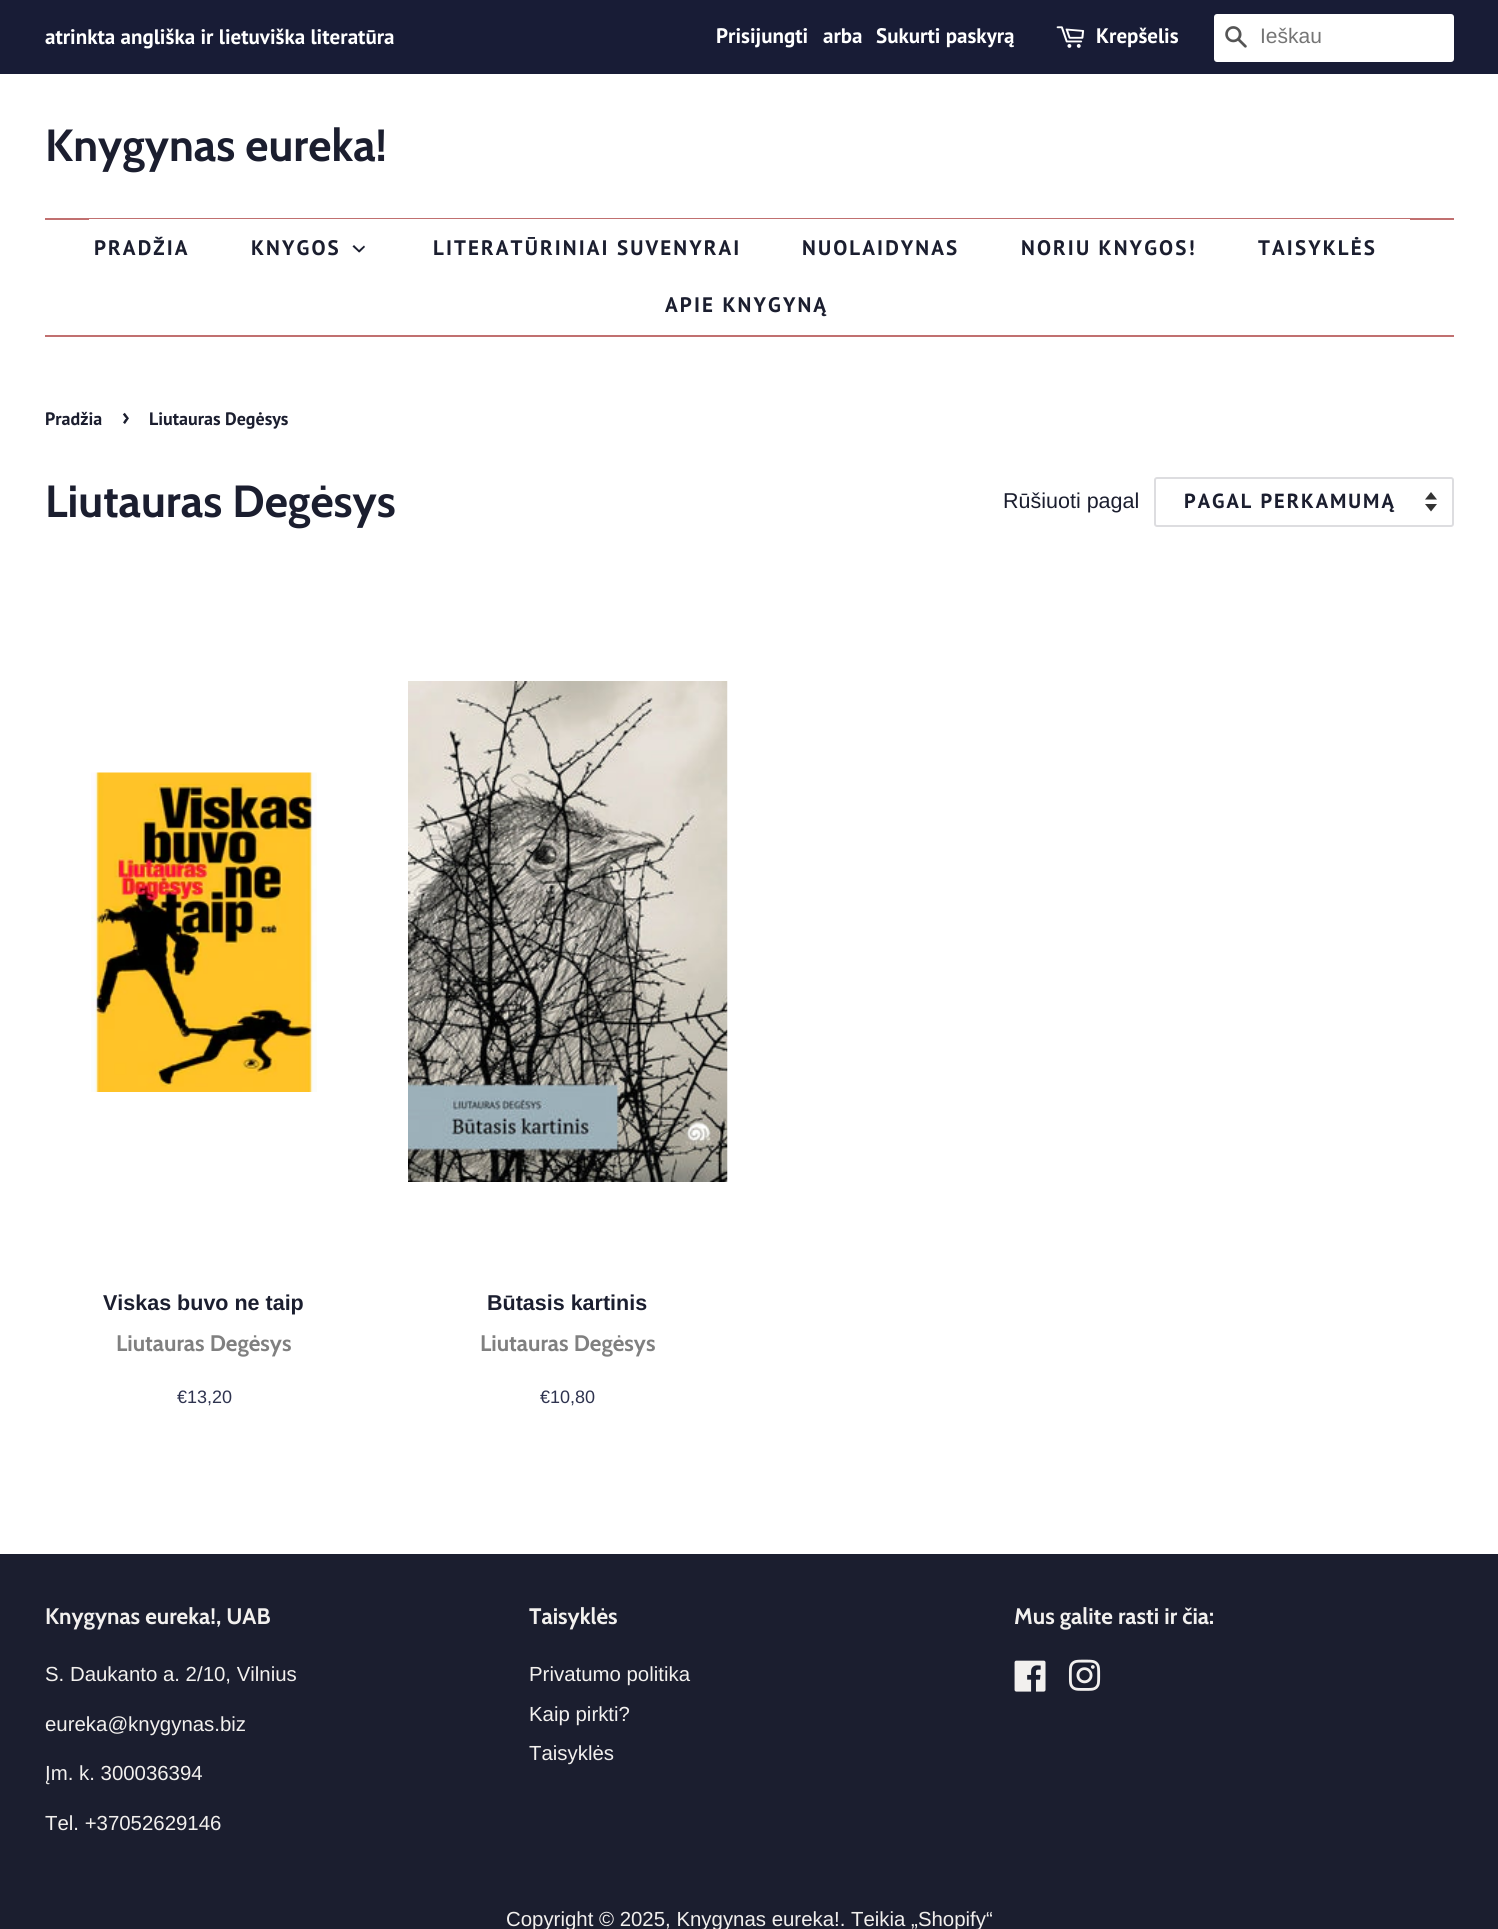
import math
import cairo



def draw_spaced(context, x, y, s, letter, word):
    context.move_to(x, y)
    for ch in s:
        context.show_text(ch)
        context.rel_move_to(letter + word * (ch == ' '), 0)


def rounded_rect(context, x, y, w, h, r):
    context.new_sub_path()
    for i, (u, v) in enumerate([(x + w - r, y + h - r), (x + r, y + h - r), (x + r, y + r), (x + w - r, y + r)]):
        context.arc(u, v, r, i * math.pi / 2, (i + 1) * math.pi / 2)
    context.close_path()


def draw_image(context, path, x, y, w, h):
    context.save()
    context.set_source_surface(cairo.ImageSurface.create_from_png(path), x, y)
    context.rectangle(x, y, w, h)
    context.fill()
    context.restore()


def draw(context):
    context.set_source_rgb(1, 1, 1)
    context.paint()
    context.set_source_rgb(24 / 255, 28 / 255, 54 / 255)
    context.rectangle(0, 0, 1498, 74)
    context.fill()
    draw_image(context, "images/1.png", 1056, 26, 29, 22)
    context.set_source_rgb(1, 1, 1)
    rounded_rect(context, 1214, 14, 240, 48, 3)
    context.fill()
    draw_image(context, "images/2.png", 1225, 26, 22, 22)
    context.set_source_rgb(193 / 255, 112 / 255, 112 / 255)
    context.rectangle(45, 218, 1409, 2)
    context.fill()
    context.rectangle(45, 335, 1409, 2)
    context.fill()
    context.set_source_rgb(1, 1, 1)
    context.rectangle(89, 219, 1321, 1)
    context.fill()
    context.set_source_rgb(27 / 255, 30 / 255, 47 / 255)
    context.new_path()
    context.move_to(364, 245.5)
    context.line_to(365, 247)
    context.line_to(359.5, 252.5)
    context.line_to(358, 251)
    context.close_path()
    context.fill()
    context.new_path()
    context.move_to(354, 245)
    context.line_to(360, 251)
    context.line_to(359, 252.5)
    context.line_to(352.5, 246.5)
    context.close_path()
    context.fill()
    draw_image(context, "images/3.png", 1425, 492, 12, 20)
    rounded_rect(context, 1155, 478, 298, 48, 2)
    context.set_source_rgb(221 / 255, 221 / 255, 224 / 255)
    context.stroke()
    draw_image(context, "images/4.png", 91, 772, 226, 320)
    draw_image(context, "images/5.png", 408, 681, 320, 501)
    context.set_source_rgb(27 / 255, 30 / 255, 47 / 255)
    context.rectangle(0, 1554, 1498, 375)
    context.fill()
    draw_image(context, "images/6.png", 1014, 1660, 32, 32)
    draw_image(context, "images/7.png", 1068, 1659, 33, 32)
    context.select_font_face("PT Sans", cairo.FontSlant.NORMAL, cairo.FontWeight.BOLD)
    context.set_font_size(21)
    context.set_source_rgb(1, 1, 1)
    context.move_to(45, 44)
    context.show_text("atrinkta angliška ir lietuviška literatūra")
    context.move_to(716, 43)
    context.show_text("Prisijungti")
    context.move_to(823, 43)
    context.show_text("arba")
    context.move_to(876, 43)
    context.show_text("Sukurti paskyrą")
    context.move_to(1096, 43)
    context.show_text("Krepšelis")
    context.select_font_face("Liberation Sans")
    context.set_source_rgb(117 / 255, 117 / 255, 117 / 255)
    context.move_to(1260, 43)
    context.show_text("Ieškau")
    context.select_font_face("Cabin", cairo.FontSlant.NORMAL, cairo.FontWeight.BOLD)
    context.set_font_size(45)
    context.set_source_rgb(27 / 255, 30 / 255, 47 / 255)
    context.move_to(45, 161)
    context.show_text("Knygynas eureka!")
    context.select_font_face("PT Sans", cairo.FontSlant.NORMAL, cairo.FontWeight.BOLD)
    context.set_font_size(21)
    draw_spaced(context, 94, 255, "PRADŽIA", 2.1, 0)
    draw_spaced(context, 251, 255, "KNYGOS", 2.1, 0)
    draw_spaced(context, 433, 255, "LITERATŪRINIAI SUVENYRAI", 2.1, 0)
    draw_spaced(context, 802, 255, "NUOLAIDYNAS", 2.1, 0)
    draw_spaced(context, 1021, 255, "NORIU KNYGOS!", 2.1, 0)
    draw_spaced(context, 1258, 255, "TAISYKLĖS", 2.1, 0)
    draw_spaced(context, 665, 312, "APIE KNYGYNĄ", 2.1, 0)
    context.set_font_size(18)
    context.move_to(45, 425)
    context.show_text("Pradžia")
    context.set_font_size(25)
    context.move_to(122, 425)
    context.show_text("›")
    context.set_font_size(18)
    context.move_to(149, 425)
    context.show_text("Liutauras Degėsys")
    context.select_font_face("Cabin", cairo.FontSlant.NORMAL, cairo.FontWeight.BOLD)
    context.set_font_size(45)
    context.move_to(45, 517)
    context.show_text("Liutauras Degėsys")
    context.select_font_face("Liberation Sans")
    context.set_font_size(21.5)
    context.move_to(1003, 508)
    context.show_text("Rūšiuoti pagal")
    context.select_font_face("PT Sans", cairo.FontSlant.NORMAL, cairo.FontWeight.BOLD)
    context.set_font_size(20.4)
    draw_spaced(context, 1184, 508, "PAGAL PERKAMUMĄ", 2, 0)
    context.select_font_face("Liberation Sans", cairo.FontSlant.NORMAL, cairo.FontWeight.BOLD)
    context.set_font_size(21.5)
    context.move_to(103, 1310)
    context.show_text("Viskas buvo ne taip")
    context.select_font_face("Cabin", cairo.FontSlant.NORMAL, cairo.FontWeight.BOLD)
    context.set_font_size(22.5)
    context.set_source_rgb(128 / 255, 128 / 255, 128 / 255)
    context.move_to(116, 1351)
    context.show_text("Liutauras Degėsys")
    context.select_font_face("Liberation Sans")
    context.set_font_size(18)
    context.set_source_rgb(46 / 255, 51 / 255, 79 / 255)
    context.move_to(177, 1403)
    context.show_text("€13,20")
    context.select_font_face("Liberation Sans", cairo.FontSlant.NORMAL, cairo.FontWeight.BOLD)
    context.set_font_size(21.5)
    context.set_source_rgb(27 / 255, 30 / 255, 47 / 255)
    context.move_to(487, 1310)
    context.show_text("Būtasis kartinis")
    context.select_font_face("Cabin", cairo.FontSlant.NORMAL, cairo.FontWeight.BOLD)
    context.set_font_size(22.5)
    context.set_source_rgb(128 / 255, 128 / 255, 128 / 255)
    context.move_to(480, 1351)
    context.show_text("Liutauras Degėsys")
    context.select_font_face("Liberation Sans")
    context.set_font_size(18)
    context.set_source_rgb(46 / 255, 51 / 255, 79 / 255)
    context.move_to(540, 1403)
    context.show_text("€10,80")
    context.select_font_face("Cabin", cairo.FontSlant.NORMAL, cairo.FontWeight.BOLD)
    context.set_font_size(22.5)
    context.set_source_rgb(242 / 255, 240 / 255, 238 / 255)
    context.move_to(45, 1624)
    context.show_text("Knygynas eureka!, UAB")
    context.select_font_face("Liberation Sans")
    context.set_font_size(20.4)
    context.move_to(45, 1681)
    context.show_text("S. Daukanto a. 2/10, Vilnius")
    context.move_to(45, 1731)
    context.show_text("eureka@knygynas.biz")
    context.move_to(45, 1780)
    context.show_text("Įm. k. 300036394")
    context.move_to(45, 1830)
    context.show_text("Tel. +37052629146")
    context.select_font_face("Cabin", cairo.FontSlant.NORMAL, cairo.FontWeight.BOLD)
    context.set_font_size(22.5)
    context.move_to(529, 1624)
    context.show_text("Taisyklės")
    context.select_font_face("Liberation Sans")
    context.set_font_size(20.4)
    context.move_to(529, 1681)
    context.show_text("Privatumo politika")
    context.move_to(529, 1721)
    context.show_text("Kaip pirkti?")
    context.move_to(529, 1760)
    context.show_text("Taisyklės")
    context.select_font_face("Cabin", cairo.FontSlant.NORMAL, cairo.FontWeight.BOLD)
    context.set_font_size(22.5)
    context.move_to(1014, 1624)
    context.show_text("Mus galite rasti ir čia:")
    context.select_font_face("Liberation Sans")
    context.set_font_size(20.4)
    context.move_to(506, 1926)
    context.show_text("Copyright © 2025, Knygynas eureka!. Teikia „Shopify“")


surface = cairo.ImageSurface(cairo.Format.RGB24, 1498, 1929)
context = cairo.Context(surface)
options = cairo.FontOptions()
options.set_hint_metrics(cairo.HintMetrics.OFF)
options.set_hint_style(cairo.HintStyle.NONE)
context.set_font_options(options)
context.set_miter_limit(4)
draw(context)
surface.write_to_png("out.png")
